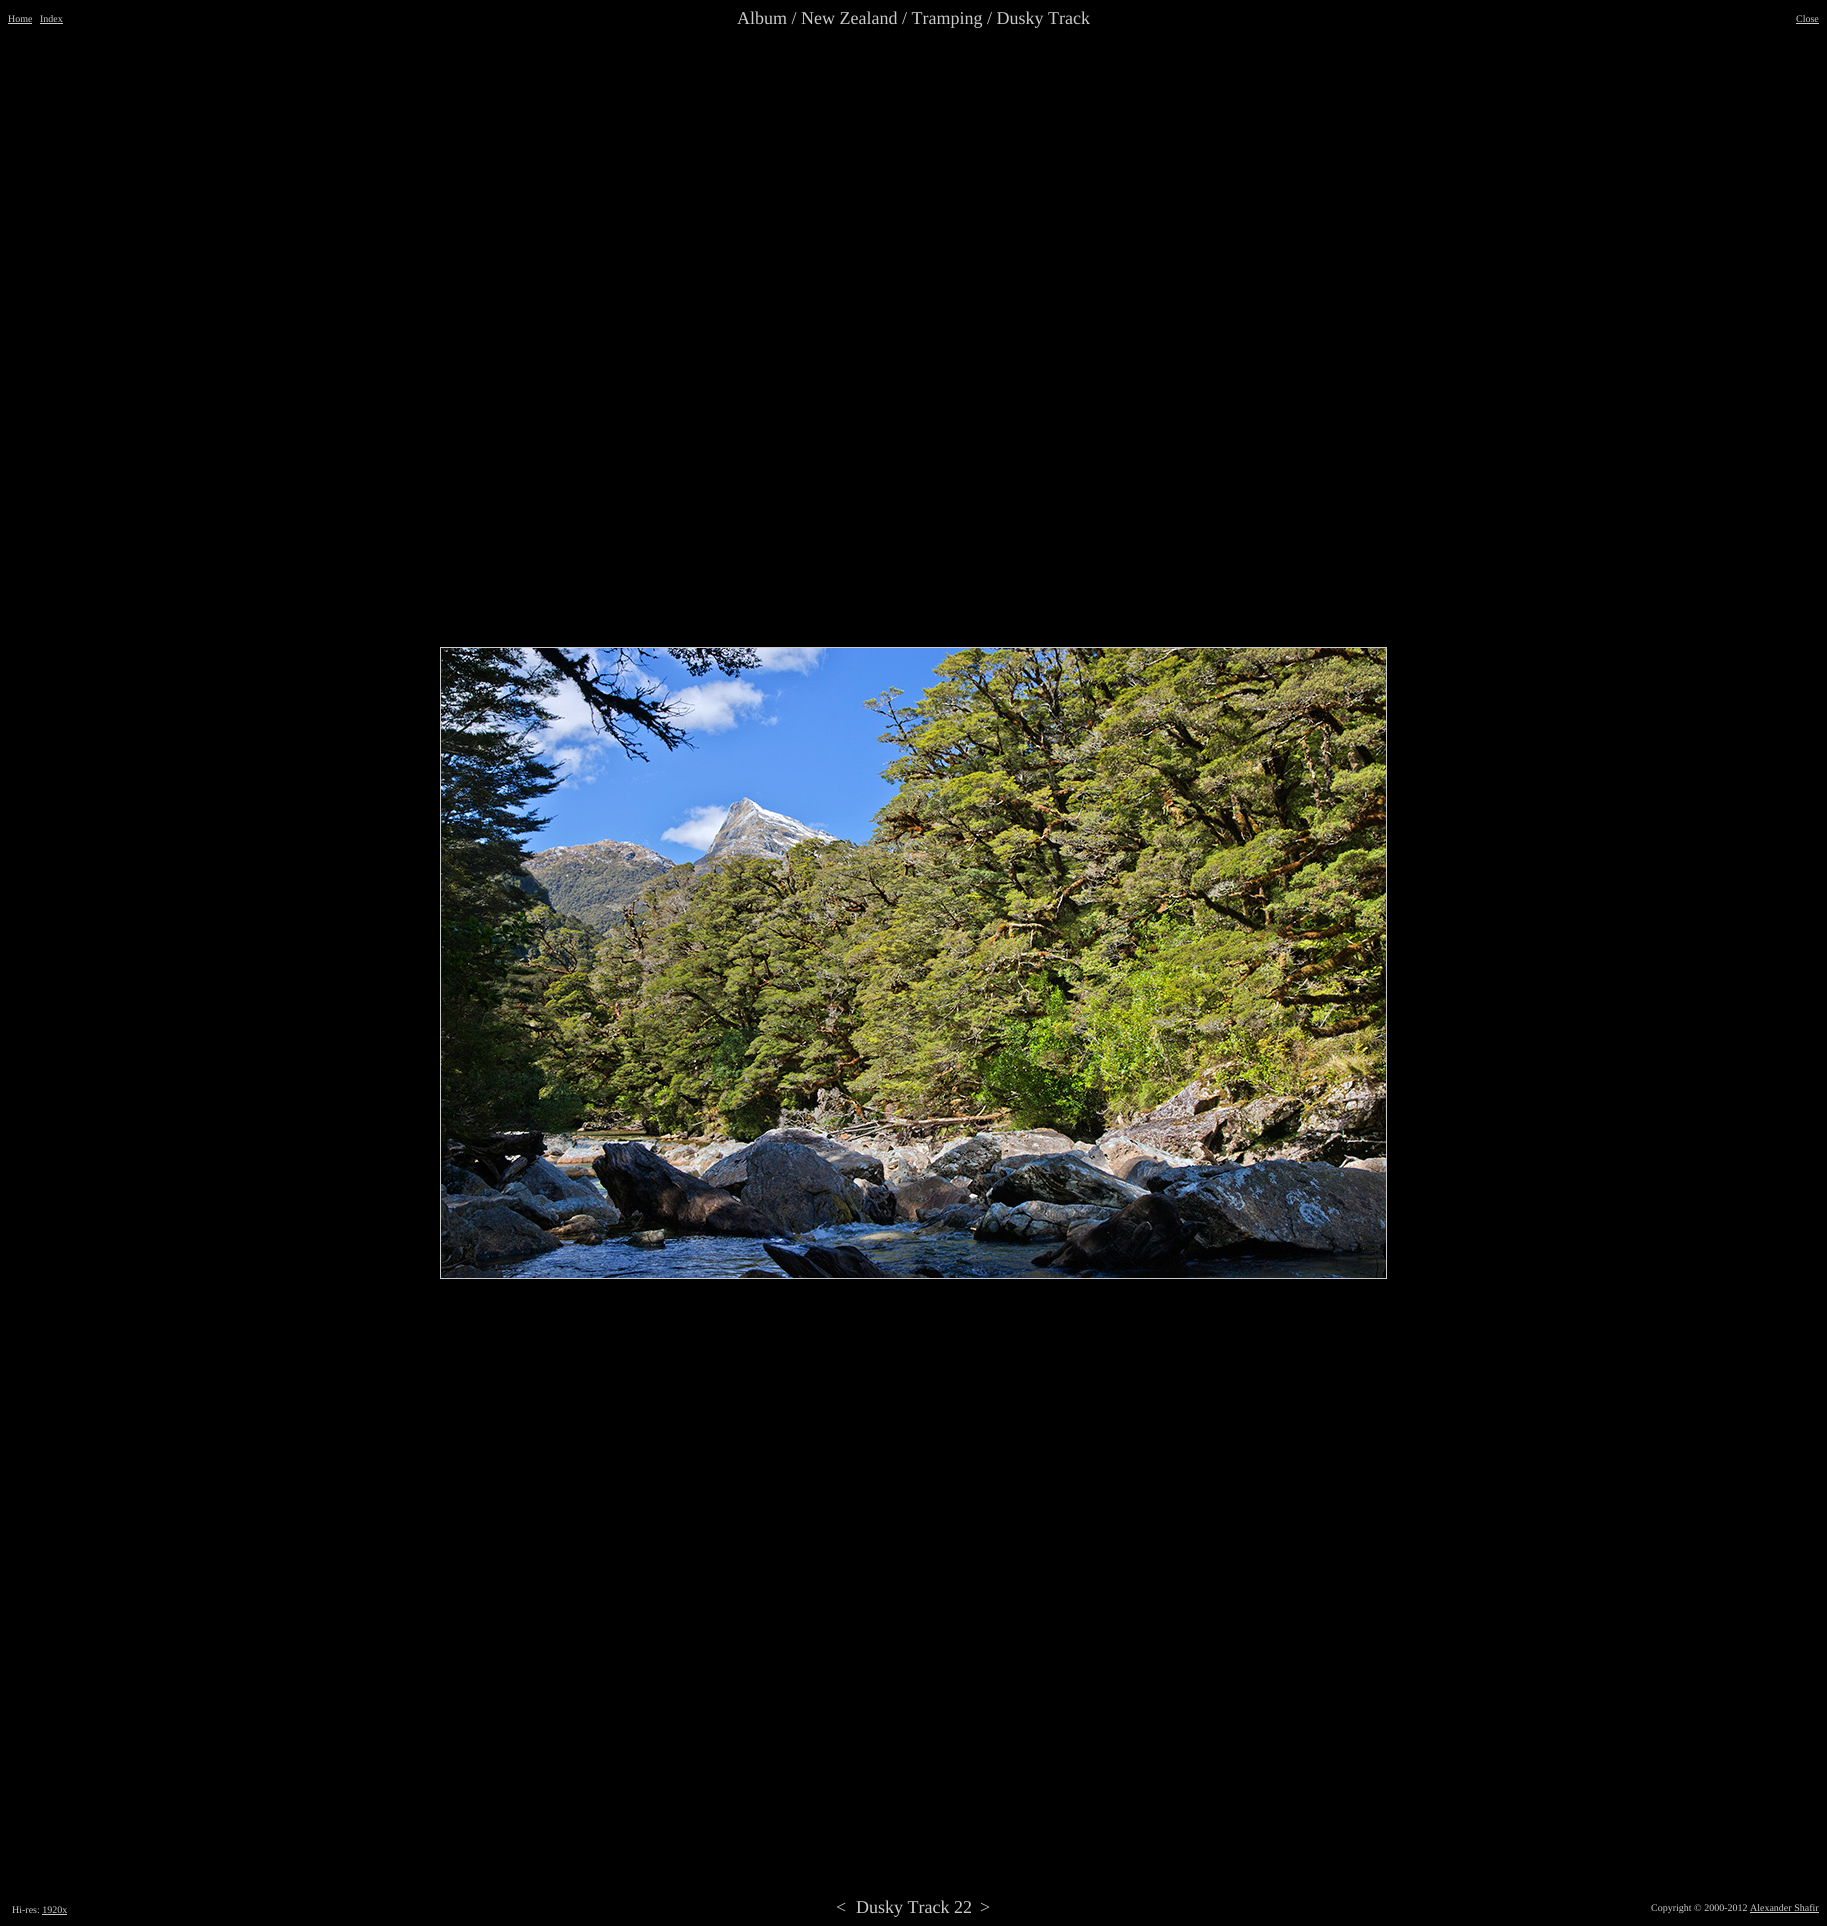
import math
import cairo



def draw_image(context, path, x, y, w, h):
    context.save()
    context.set_source_surface(cairo.ImageSurface.create_from_png(path), x, y)
    context.rectangle(x, y, w, h)
    context.fill()
    context.restore()


def draw(context):
    context.set_source_rgb(0, 0, 0)
    context.paint()
    context.set_source_rgb(204 / 255, 204 / 255, 204 / 255)
    context.rectangle(8, 23, 24, 1)
    context.fill()
    context.rectangle(40, 23, 23, 1)
    context.fill()
    context.rectangle(1796, 23, 23, 1)
    context.fill()
    context.rectangle(440.5, 647.5, 946, 631)
    context.set_line_width(1)
    context.stroke()
    draw_image(context, "images/1.png", 441, 648, 945, 630)
    context.rectangle(42, 1914, 25, 1)
    context.fill()
    context.rectangle(1750, 1912, 69, 1)
    context.fill()
    context.select_font_face("Liberation Serif")
    context.set_font_size(10)
    context.move_to(8, 22)
    context.show_text("Home")
    context.move_to(40, 22)
    context.show_text("Index")
    context.set_font_size(18)
    context.move_to(737, 24)
    context.show_text("Album / New Zealand / Tramping / Dusky Track")
    context.set_font_size(10)
    context.move_to(1796, 22)
    context.show_text("Close")
    context.move_to(12, 1913)
    context.show_text("Hi-res: 1920x")
    context.set_font_size(18)
    context.move_to(836, 1913)
    context.show_text("<")
    context.move_to(856, 1913)
    context.show_text("Dusky Track 22")
    context.move_to(980, 1913)
    context.show_text(">")
    context.set_font_size(10)
    context.move_to(1651, 1911)
    context.show_text("Copyright © 2000-2012 Alexander Shafir")


surface = cairo.ImageSurface(cairo.Format.RGB24, 1827, 1926)
context = cairo.Context(surface)
options = cairo.FontOptions()
options.set_hint_metrics(cairo.HintMetrics.OFF)
options.set_hint_style(cairo.HintStyle.NONE)
context.set_font_options(options)
context.set_miter_limit(4)
draw(context)
surface.write_to_png("out.png")
